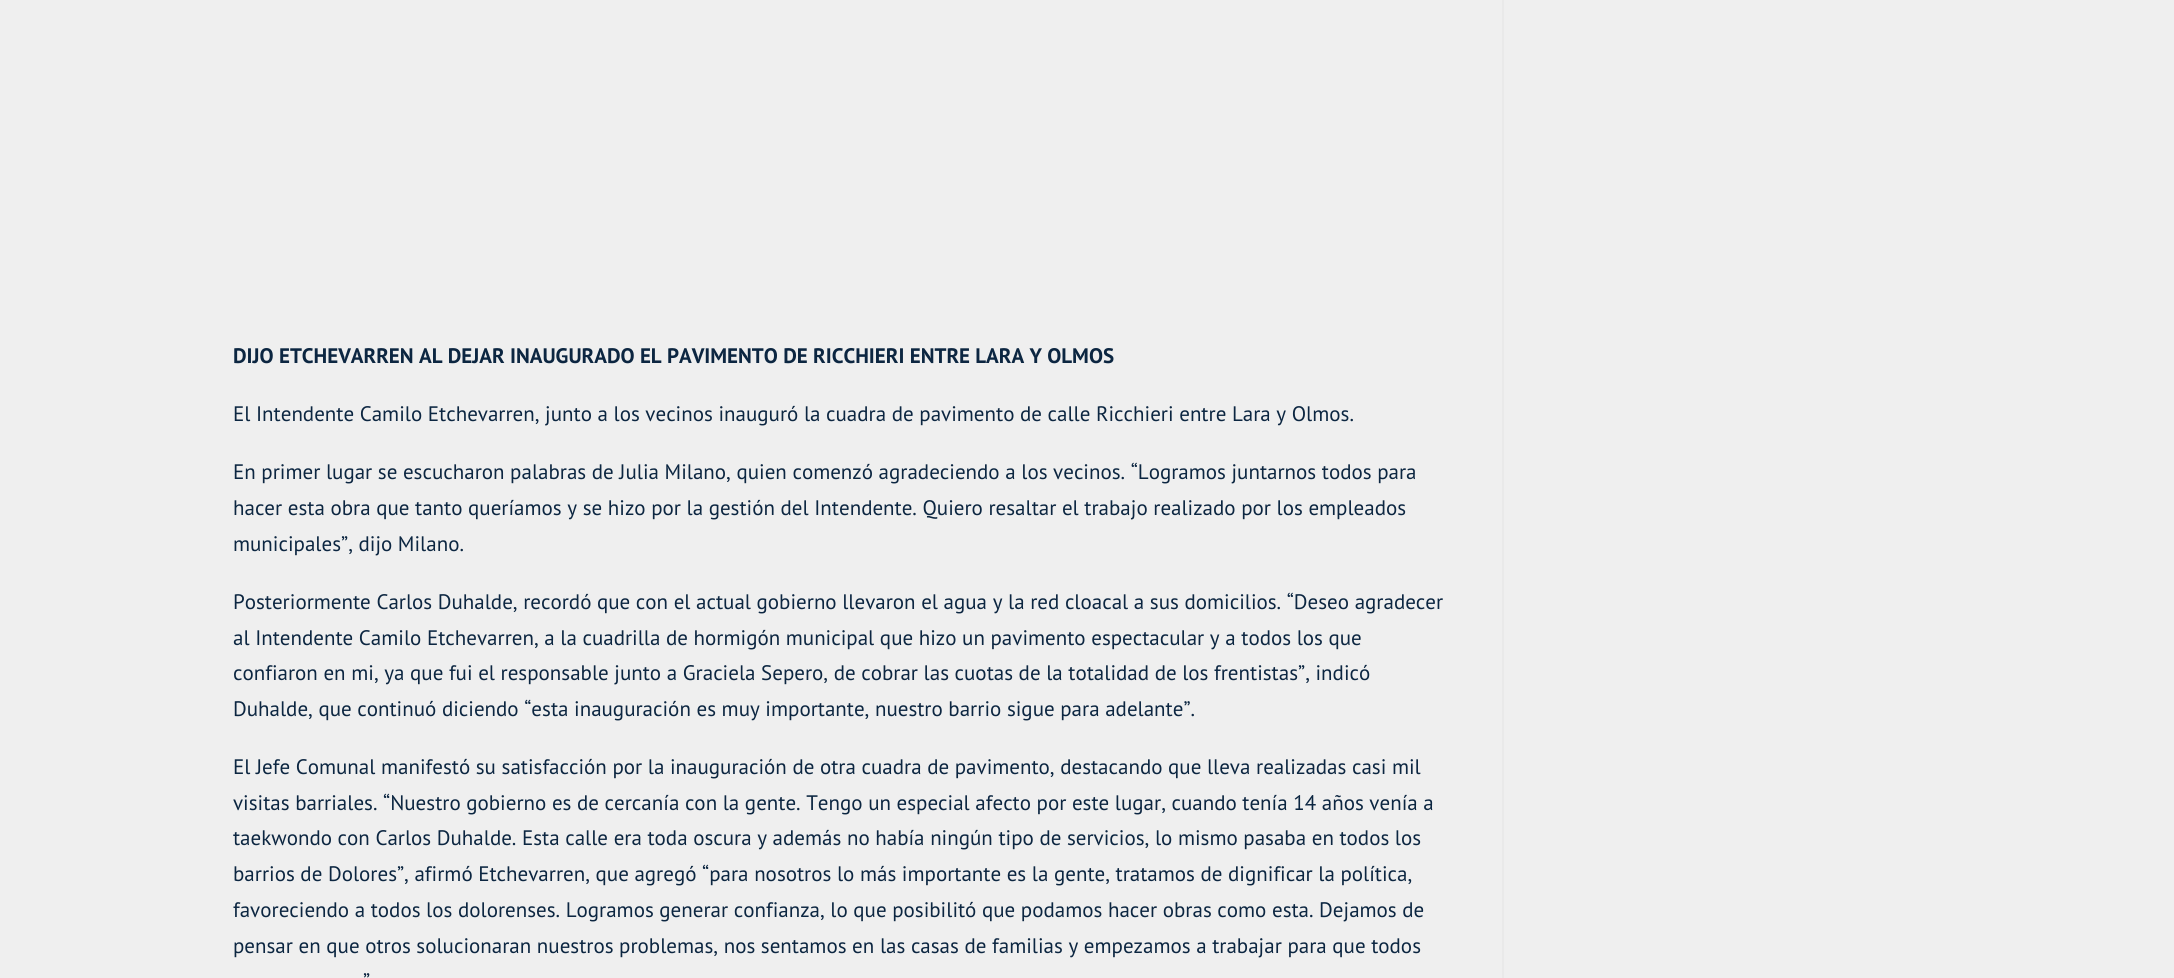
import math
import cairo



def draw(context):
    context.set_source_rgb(239 / 255, 239 / 255, 239 / 255)
    context.paint()
    context.set_source_rgb(233 / 255, 233 / 255, 233 / 255)
    context.rectangle(1502, 0, 2, 978)
    context.fill()
    context.select_font_face("PT Sans", cairo.FontSlant.NORMAL, cairo.FontWeight.BOLD)
    context.set_font_size(21)
    context.set_source_rgb(12 / 255, 38 / 255, 65 / 255)
    context.move_to(233, 363)
    context.show_text("DIJO ETCHEVARREN AL DEJAR INAUGURADO EL PAVIMENTO DE RICCHIERI ENTRE LARA Y OLMOS")
    context.select_font_face("PT Sans")
    context.move_to(233, 421)
    context.show_text("El Intendente Camilo Etchevarren, junto a los vecinos inauguró la cuadra de pavimento de calle Ricchieri entre Lara y Olmos.")
    context.move_to(233, 479)
    context.show_text("En primer lugar se escucharon palabras de Julia Milano, quien comenzó agradeciendo a los vecinos. “Logramos juntarnos todos para")
    context.move_to(233, 515)
    context.show_text("hacer esta obra que tanto queríamos y se hizo por la gestión del Intendente. Quiero resaltar el trabajo realizado por los empleados")
    context.move_to(233, 551)
    context.show_text("municipales”, dijo Milano.")
    context.move_to(233, 609)
    context.show_text("Posteriormente Carlos Duhalde, recordó que con el actual gobierno llevaron el agua y la red cloacal a sus domicilios. “Deseo agradecer")
    context.move_to(233, 645)
    context.show_text("al Intendente Camilo Etchevarren, a la cuadrilla de hormigón municipal que hizo un pavimento espectacular y a todos los que")
    context.move_to(233, 680)
    context.show_text("confiaron en mi, ya que fui el responsable junto a Graciela Sepero, de cobrar las cuotas de la totalidad de los frentistas”, indicó")
    context.move_to(233, 716)
    context.show_text("Duhalde, que continuó diciendo “esta inauguración es muy importante, nuestro barrio sigue para adelante”.")
    context.move_to(233, 774)
    context.show_text("El Jefe Comunal manifestó su satisfacción por la inauguración de otra cuadra de pavimento, destacando que lleva realizadas casi mil")
    context.move_to(233, 810)
    context.show_text("visitas barriales. “Nuestro gobierno es de cercanía con la gente. Tengo un especial afecto por este lugar, cuando tenía 14 años venía a")
    context.move_to(233, 845)
    context.show_text("taekwondo con Carlos Duhalde. Esta calle era toda oscura y además no había ningún tipo de servicios, lo mismo pasaba en todos los")
    context.move_to(233, 881)
    context.show_text("barrios de Dolores”, afirmó Etchevarren, que agregó “para nosotros lo más importante es la gente, tratamos de dignificar la política,")
    context.move_to(233, 917)
    context.show_text("favoreciendo a todos los dolorenses. Logramos generar confianza, lo que posibilitó que podamos hacer obras como esta. Dejamos de")
    context.move_to(233, 953)
    context.show_text("pensar en que otros solucionaran nuestros problemas, nos sentamos en las casas de familias y empezamos a trabajar para que todos")
    context.move_to(363, 988)
    context.show_text("”")


surface = cairo.ImageSurface(cairo.Format.RGB24, 2174, 978)
context = cairo.Context(surface)
options = cairo.FontOptions()
options.set_hint_metrics(cairo.HintMetrics.OFF)
options.set_hint_style(cairo.HintStyle.NONE)
context.set_font_options(options)
context.set_miter_limit(4)
draw(context)
surface.write_to_png("out.png")
